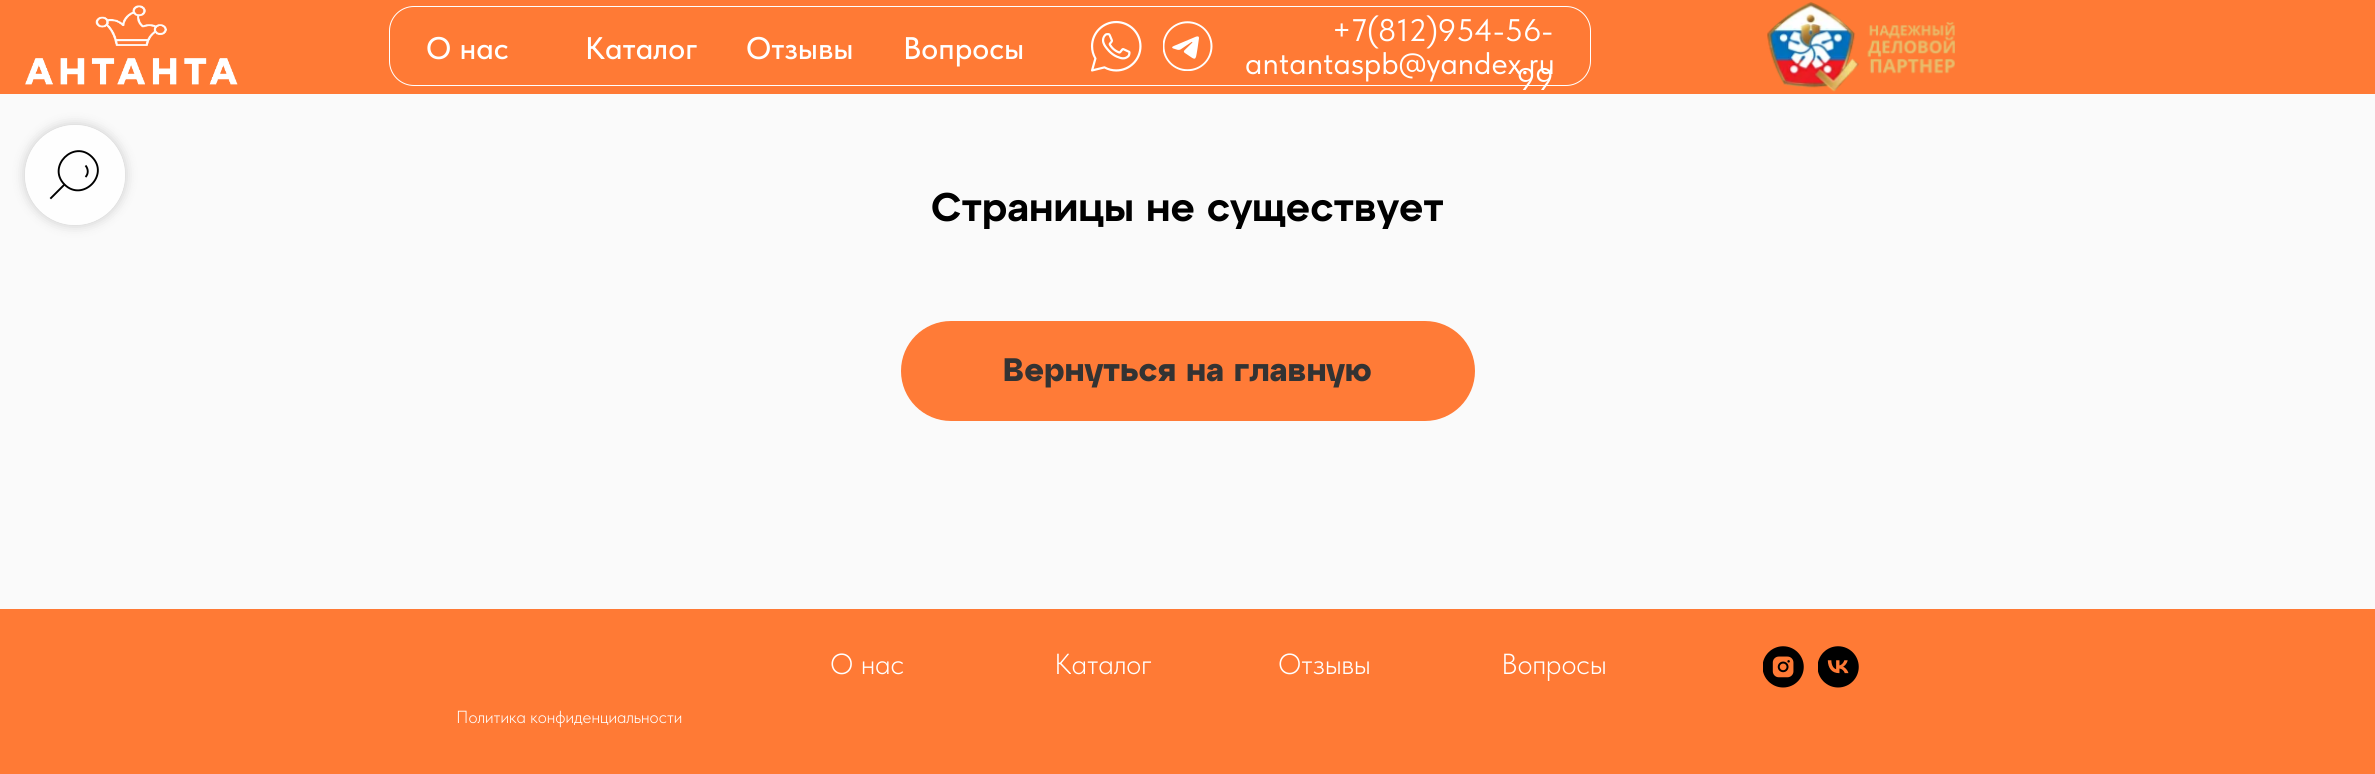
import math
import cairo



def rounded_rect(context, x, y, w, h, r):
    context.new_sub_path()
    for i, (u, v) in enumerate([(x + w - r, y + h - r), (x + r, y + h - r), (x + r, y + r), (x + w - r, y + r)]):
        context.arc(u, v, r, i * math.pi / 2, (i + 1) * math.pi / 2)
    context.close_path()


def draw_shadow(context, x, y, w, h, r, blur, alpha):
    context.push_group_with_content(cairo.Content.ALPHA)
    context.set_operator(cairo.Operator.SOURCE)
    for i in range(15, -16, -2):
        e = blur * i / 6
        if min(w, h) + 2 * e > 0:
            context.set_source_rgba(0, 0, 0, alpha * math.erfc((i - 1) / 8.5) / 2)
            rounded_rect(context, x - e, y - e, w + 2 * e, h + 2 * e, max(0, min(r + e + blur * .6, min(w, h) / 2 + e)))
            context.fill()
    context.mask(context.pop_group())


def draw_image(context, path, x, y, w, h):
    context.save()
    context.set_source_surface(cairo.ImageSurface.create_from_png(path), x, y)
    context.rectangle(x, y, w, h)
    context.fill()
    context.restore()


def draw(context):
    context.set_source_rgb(250 / 255, 250 / 255, 250 / 255)
    context.paint()
    context.set_source_rgb(1, 122 / 255, 53 / 255)
    context.rectangle(0, 0, 2375, 94)
    context.fill()
    draw_image(context, "images/1.png", 25, 5, 213, 80)
    rounded_rect(context, 389.5, 6.5, 1201, 79, 24.5)
    context.set_source_rgb(1, 1, 1)
    context.set_line_width(1)
    context.stroke()
    draw_image(context, "images/2.png", 1767, 2, 188, 90)
    draw_image(context, "images/3.png", 1090, 20, 52, 52)
    draw_image(context, "images/4.png", 1163, 21, 50, 50)
    context.set_source_rgb(1, 123 / 255, 55 / 255)
    rounded_rect(context, 901, 321, 574, 100, 50)
    context.fill()
    context.save()
    context.set_fill_rule(cairo.FillRule.EVEN_ODD)
    context.new_path()
    context.move_to(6, 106)
    context.line_to(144, 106)
    context.line_to(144, 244)
    context.line_to(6, 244)
    context.close_path()
    context.move_to(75, 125)
    context.curve_to(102.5, 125, 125, 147.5, 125, 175)
    context.curve_to(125, 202.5, 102.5, 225, 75, 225)
    context.curve_to(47.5, 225, 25, 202.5, 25, 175)
    context.curve_to(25, 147.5, 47.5, 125, 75, 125)
    context.close_path()
    context.clip()
    context.set_source_rgb(0, 0, 0)
    draw_shadow(context, 25, 125, 100, 100, 50, 6, 0.2)
    context.restore()
    context.set_source_rgba(1, 1, 1, 0.8)
    context.arc(75, 175, 50, 0, 2 * math.pi)
    context.fill()
    context.new_path()
    context.move_to(64, 185)
    context.line_to(51, 198)
    context.set_source_rgb(0, 0, 0)
    context.set_line_width(1.9)
    context.set_line_cap(cairo.LineCap.SQUARE)
    context.stroke()
    context.new_path()
    context.move_to(92, 157)
    context.curve_to(110, 175, 82.5, 202.5, 64.5, 184.5)
    context.curve_to(46.5, 166.5, 74, 139, 92, 157)
    context.close_path()
    context.move_to(85.5, 165.5)
    context.curve_to(88.5, 169, 88.5, 174, 85.5, 177)
    context.set_line_cap(cairo.LineCap.BUTT)
    context.stroke()
    context.set_source_rgb(1, 122 / 255, 53 / 255)
    context.rectangle(0, 609, 2375, 165)
    context.fill()
    draw_image(context, "images/5.png", 1763, 646, 41, 42)
    draw_image(context, "images/6.png", 1818, 646, 41, 42)
    context.select_font_face("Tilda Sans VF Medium")
    context.set_font_size(31.25)
    context.set_source_rgb(1, 1, 1)
    context.move_to(426, 59)
    context.show_text("О нас")
    context.move_to(585, 59)
    context.show_text("Каталог")
    context.move_to(746, 59)
    context.show_text("Отзывы")
    context.move_to(903, 59)
    context.show_text("Вопросы")
    context.select_font_face("Tilda Sans VF")
    context.move_to(1332, 41)
    context.show_text("+7(812)954-56-")
    context.move_to(1517, 90)
    context.show_text("99")
    context.move_to(1245, 74)
    context.show_text("antantaspb@yandex.ru")
    context.select_font_face("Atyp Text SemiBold")
    context.set_font_size(40)
    context.set_source_rgb(0, 0, 0)
    context.move_to(931, 221)
    context.show_text("Страницы не существует")
    context.select_font_face("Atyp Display", cairo.FontSlant.NORMAL, cairo.FontWeight.BOLD)
    context.set_font_size(32.5)
    context.set_source_rgb(51 / 255, 51 / 255, 51 / 255)
    context.move_to(1003, 381)
    context.show_text("Вернуться на главную")
    context.select_font_face("Tilda Sans VF Light")
    context.set_font_size(29)
    context.set_source_rgb(1, 1, 1)
    context.move_to(830, 674)
    context.show_text("О нас")
    context.move_to(1054, 674)
    context.show_text("Каталог")
    context.move_to(1278, 674)
    context.show_text("Отзывы")
    context.move_to(1501, 674)
    context.show_text("Вопросы")
    context.set_font_size(17.5)
    context.move_to(456, 723)
    context.show_text("Политика конфиденциальности")


surface = cairo.ImageSurface(cairo.Format.RGB24, 2375, 774)
context = cairo.Context(surface)
options = cairo.FontOptions()
options.set_hint_metrics(cairo.HintMetrics.OFF)
options.set_hint_style(cairo.HintStyle.NONE)
context.set_font_options(options)
context.set_miter_limit(4)
draw(context)
surface.write_to_png("out.png")
